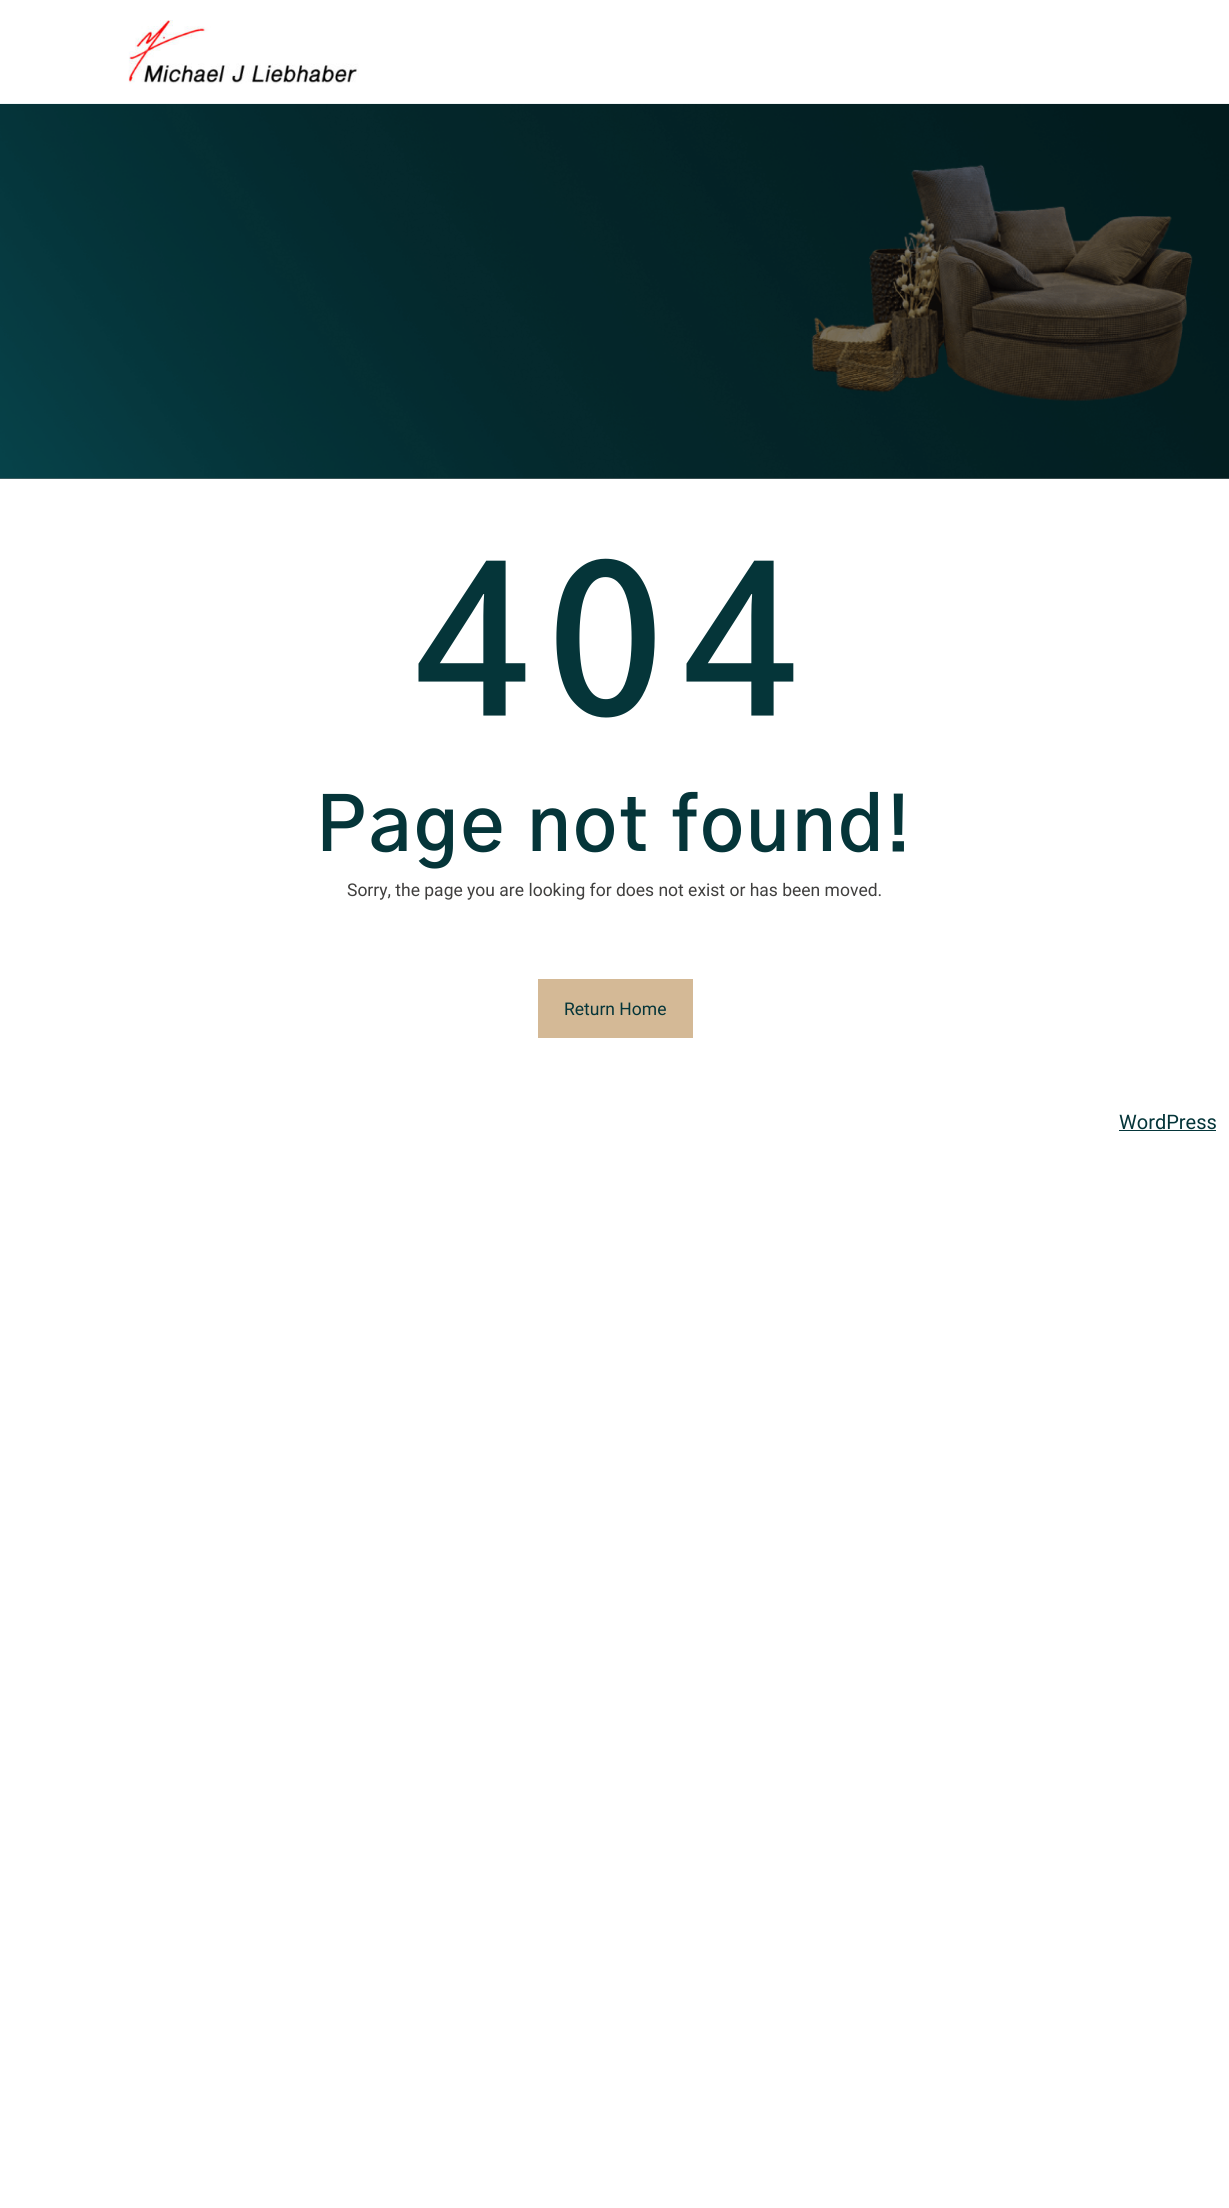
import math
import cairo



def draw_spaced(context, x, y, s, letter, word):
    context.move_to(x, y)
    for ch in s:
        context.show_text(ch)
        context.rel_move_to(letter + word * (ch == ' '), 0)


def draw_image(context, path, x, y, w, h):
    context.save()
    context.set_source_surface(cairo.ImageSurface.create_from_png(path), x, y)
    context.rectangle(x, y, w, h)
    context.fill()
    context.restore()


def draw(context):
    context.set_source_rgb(1, 1, 1)
    context.paint()
    context.set_source_rgb(128 / 255, 128 / 255, 128 / 255)
    context.rectangle(0, 478, 1229, 1)
    context.fill()
    draw_image(context, "images/1.png", 128, 20, 231, 64)
    draw_image(context, "images/2.png", 0, 103, 1229, 376)
    context.set_source_rgb(212 / 255, 185 / 255, 150 / 255)
    context.rectangle(538, 979, 155, 59)
    context.fill()
    context.set_source_rgb(5 / 255, 53 / 255, 57 / 255)
    context.rectangle(1119, 1130, 97, 1)
    context.fill()
    context.select_font_face("Gothic A1 SemiBold")
    context.set_font_size(200)
    draw_spaced(context, 414, 714, "404", 19, 0)
    context.set_font_size(75.25)
    draw_spaced(context, 316, 851, "Page not found!", 2.5, 0)
    context.select_font_face("Roboto")
    context.set_font_size(17.5)
    context.set_source_rgb(64 / 255, 63 / 255, 62 / 255)
    context.move_to(347, 896)
    context.show_text("Sorry, the page you are looking for does not exist or has been moved.")
    context.set_source_rgb(5 / 255, 53 / 255, 57 / 255)
    context.move_to(564, 1015)
    context.show_text("Return Home")
    context.set_font_size(20)
    context.move_to(1119, 1129)
    context.show_text("WordPress")


surface = cairo.ImageSurface(cairo.Format.RGB24, 1229, 2208)
context = cairo.Context(surface)
options = cairo.FontOptions()
options.set_hint_metrics(cairo.HintMetrics.OFF)
options.set_hint_style(cairo.HintStyle.NONE)
context.set_font_options(options)
context.set_miter_limit(4)
draw(context)
surface.write_to_png("out.png")
